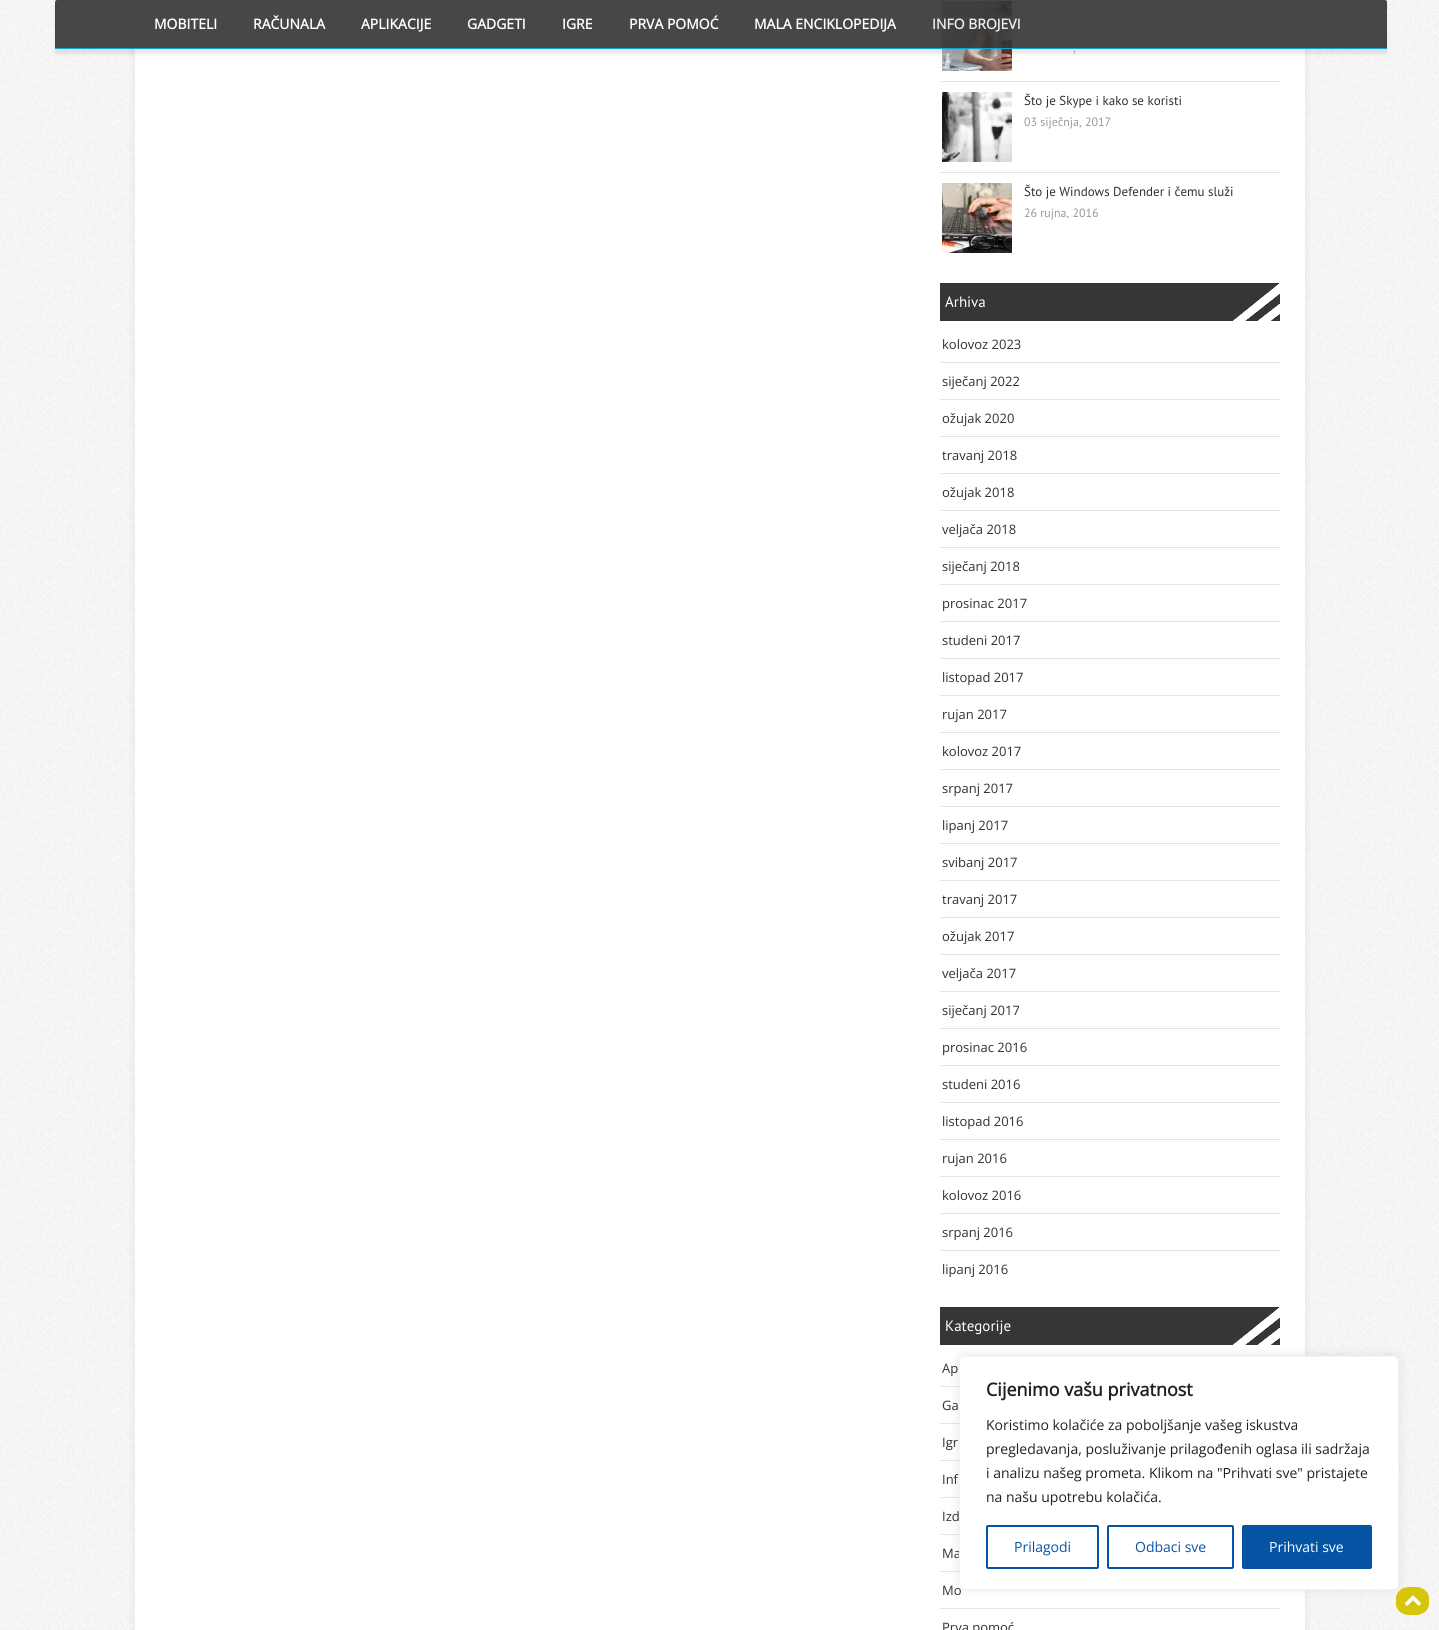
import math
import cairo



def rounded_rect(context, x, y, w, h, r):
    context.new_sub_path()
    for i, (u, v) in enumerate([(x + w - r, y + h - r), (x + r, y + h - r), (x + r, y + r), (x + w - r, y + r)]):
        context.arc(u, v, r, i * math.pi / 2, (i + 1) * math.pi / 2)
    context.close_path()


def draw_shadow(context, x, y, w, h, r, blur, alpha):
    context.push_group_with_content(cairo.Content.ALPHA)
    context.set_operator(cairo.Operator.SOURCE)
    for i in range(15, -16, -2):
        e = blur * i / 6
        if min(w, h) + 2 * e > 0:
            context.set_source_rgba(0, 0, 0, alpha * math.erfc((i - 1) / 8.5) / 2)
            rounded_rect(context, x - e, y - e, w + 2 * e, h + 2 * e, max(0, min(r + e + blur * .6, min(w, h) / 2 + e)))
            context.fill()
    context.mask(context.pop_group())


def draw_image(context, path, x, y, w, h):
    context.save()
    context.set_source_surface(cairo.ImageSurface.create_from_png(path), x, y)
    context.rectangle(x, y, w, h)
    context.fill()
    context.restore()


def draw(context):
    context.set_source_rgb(1, 1, 1)
    context.paint()
    draw_image(context, "images/1.png", 0, 0, 1439, 1630)
    context.set_source_rgb(0, 0, 0)
    draw_shadow(context, 135, -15, 1170, 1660, 0, 5, 0.08)
    context.set_source_rgb(1, 1, 1)
    context.rectangle(135, 0, 1170, 1630)
    context.fill()
    draw_image(context, "images/2.png", 942, 1, 70, 70)
    context.save()
    context.set_fill_rule(cairo.FillRule.EVEN_ODD)
    context.new_path()
    context.move_to(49, 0)
    context.line_to(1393, 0)
    context.line_to(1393, 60)
    context.line_to(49, 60)
    context.close_path()
    context.move_to(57, 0)
    context.line_to(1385, 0)
    context.curve_to(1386, 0, 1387, 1, 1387, 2)
    context.line_to(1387, 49)
    context.line_to(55, 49)
    context.line_to(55, 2)
    context.curve_to(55, 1, 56, 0, 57, 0)
    context.close_path()
    context.clip()
    context.set_source_rgb(0, 0, 0)
    draw_shadow(context, 55, 5, 1332, 49, 2, 1.5, 0.09)
    context.restore()
    context.set_source_rgba(51 / 255, 51 / 255, 51 / 255, 0.9)
    context.new_path()
    context.move_to(57, 0)
    context.line_to(1385, 0)
    context.curve_to(1386, 0, 1387, 1, 1387, 2)
    context.line_to(1387, 49)
    context.line_to(55, 49)
    context.line_to(55, 2)
    context.curve_to(55, 1, 56, 0, 57, 0)
    context.close_path()
    context.fill()
    context.set_source_rgba(6 / 255, 175 / 255, 228 / 255, 0.9)
    context.rectangle(55, 48, 1332, 1)
    context.fill()
    context.set_source_rgb(228 / 255, 228 / 255, 228 / 255)
    context.rectangle(940, 81, 340, 1)
    context.fill()
    context.rectangle(940, 172, 340, 1)
    context.fill()
    draw_image(context, "images/3.png", 942, 92, 70, 70)
    draw_image(context, "images/4.png", 942, 183, 70, 70)
    context.set_source_rgb(54 / 255, 54 / 255, 54 / 255)
    context.rectangle(940, 283, 340, 38)
    context.fill()
    draw_image(context, "images/5.png", 1233, 283, 47, 38)
    context.set_source_rgb(228 / 255, 228 / 255, 228 / 255)
    context.rectangle(940, 362, 340, 1)
    context.fill()
    context.rectangle(940, 399, 340, 1)
    context.fill()
    context.rectangle(940, 436, 340, 1)
    context.fill()
    context.rectangle(940, 473, 340, 1)
    context.fill()
    context.rectangle(940, 510, 340, 1)
    context.fill()
    context.rectangle(940, 547, 340, 1)
    context.fill()
    context.rectangle(940, 584, 340, 1)
    context.fill()
    context.rectangle(940, 621, 340, 1)
    context.fill()
    context.rectangle(940, 658, 340, 1)
    context.fill()
    context.rectangle(940, 695, 340, 1)
    context.fill()
    context.rectangle(940, 732, 340, 1)
    context.fill()
    context.rectangle(940, 769, 340, 1)
    context.fill()
    context.rectangle(940, 806, 340, 1)
    context.fill()
    context.rectangle(940, 843, 340, 1)
    context.fill()
    context.rectangle(940, 880, 340, 1)
    context.fill()
    context.rectangle(940, 917, 340, 1)
    context.fill()
    context.rectangle(940, 954, 340, 1)
    context.fill()
    context.rectangle(940, 991, 340, 1)
    context.fill()
    context.rectangle(940, 1028, 340, 1)
    context.fill()
    context.rectangle(940, 1065, 340, 1)
    context.fill()
    context.rectangle(940, 1102, 340, 1)
    context.fill()
    context.rectangle(940, 1139, 340, 1)
    context.fill()
    context.rectangle(940, 1176, 340, 1)
    context.fill()
    context.rectangle(940, 1213, 340, 1)
    context.fill()
    context.rectangle(940, 1250, 340, 1)
    context.fill()
    context.set_source_rgb(54 / 255, 54 / 255, 54 / 255)
    context.rectangle(940, 1307, 340, 38)
    context.fill()
    draw_image(context, "images/5.png", 1233, 1307, 47, 38)
    context.set_source_rgb(228 / 255, 228 / 255, 228 / 255)
    context.rectangle(940, 1386, 19, 1)
    context.fill()
    context.rectangle(940, 1423, 19, 1)
    context.fill()
    context.rectangle(940, 1460, 19, 1)
    context.fill()
    context.rectangle(940, 1497, 19, 1)
    context.fill()
    context.rectangle(940, 1534, 19, 1)
    context.fill()
    context.rectangle(940, 1571, 19, 1)
    context.fill()
    context.rectangle(940, 1608, 340, 1)
    context.fill()
    context.set_source_rgb(215 / 255, 197 / 255, 10 / 255)
    context.new_path()
    context.move_to(1409, 1587)
    context.line_to(1416, 1587)
    context.curve_to(1423, 1587, 1429, 1592, 1429, 1598)
    context.line_to(1429, 1604)
    context.curve_to(1429, 1610, 1423, 1615, 1416, 1615)
    context.line_to(1409, 1615)
    context.curve_to(1402, 1615, 1396, 1610, 1396, 1604)
    context.line_to(1396, 1598)
    context.curve_to(1396, 1592, 1402, 1587, 1409, 1587)
    context.close_path()
    context.fill()
    draw_image(context, "images/6.png", 1404, 1595, 18, 11)
    context.set_source_rgb(172 / 255, 171 / 255, 171 / 255)
    draw_shadow(context, 959, 1355, 440, 234, 6, 5, 0.3)
    context.select_font_face("Open Sans", cairo.FontSlant.NORMAL, cairo.FontWeight.BOLD)
    context.set_font_size(14)
    context.set_source_rgb(1, 1, 1)
    context.move_to(154, 29)
    context.show_text("MOBITELI")
    context.move_to(253, 29)
    context.show_text("RAČUNALA")
    context.move_to(361, 29)
    context.show_text("APLIKACIJE")
    context.move_to(467, 29)
    context.show_text("GADGETI")
    context.move_to(562, 29)
    context.show_text("IGRE")
    context.move_to(629, 29)
    context.show_text("PRVA POMOĆ")
    context.move_to(754, 29)
    context.show_text("MALA ENCIKLOPEDIJA")
    context.set_source_rgb(236 / 255, 236 / 255, 236 / 255)
    context.move_to(932, 29)
    context.show_text("INFO BROJEVI")
    context.select_font_face("PT Sans")
    context.set_font_size(12)
    context.set_source_rgb(153 / 255, 153 / 255, 153 / 255)
    context.move_to(1073, 52)
    context.show_text(",")
    context.set_font_size(13)
    context.set_source_rgb(49 / 255, 49 / 255, 49 / 255)
    context.move_to(1024, 105)
    context.show_text("Što je Skype i kako se koristi")
    context.set_font_size(12)
    context.set_source_rgb(153 / 255, 153 / 255, 153 / 255)
    context.move_to(1024, 126)
    context.show_text("03 siječnja, 2017")
    context.set_font_size(13)
    context.set_source_rgb(49 / 255, 49 / 255, 49 / 255)
    context.move_to(1024, 196)
    context.show_text("Što je Windows Defender i čemu služi")
    context.set_font_size(12)
    context.set_source_rgb(153 / 255, 153 / 255, 153 / 255)
    context.move_to(1024, 217)
    context.show_text("26 rujna, 2016")
    context.set_font_size(15)
    context.set_source_rgb(1, 1, 1)
    context.move_to(945, 307)
    context.show_text("Arhiva")
    context.select_font_face("Open Sans")
    context.set_font_size(13)
    context.set_source_rgb(49 / 255, 49 / 255, 49 / 255)
    context.move_to(942, 349)
    context.show_text("kolovoz 2023")
    context.move_to(942, 386)
    context.show_text("siječanj 2022")
    context.move_to(942, 423)
    context.show_text("ožujak 2020")
    context.move_to(942, 460)
    context.show_text("travanj 2018")
    context.move_to(942, 497)
    context.show_text("ožujak 2018")
    context.move_to(942, 534)
    context.show_text("veljača 2018")
    context.move_to(942, 571)
    context.show_text("siječanj 2018")
    context.move_to(942, 608)
    context.show_text("prosinac 2017")
    context.move_to(942, 645)
    context.show_text("studeni 2017")
    context.move_to(942, 682)
    context.show_text("listopad 2017")
    context.move_to(942, 719)
    context.show_text("rujan 2017")
    context.move_to(942, 756)
    context.show_text("kolovoz 2017")
    context.move_to(942, 793)
    context.show_text("srpanj 2017")
    context.move_to(942, 830)
    context.show_text("lipanj 2017")
    context.move_to(942, 867)
    context.show_text("svibanj 2017")
    context.move_to(942, 904)
    context.show_text("travanj 2017")
    context.move_to(942, 941)
    context.show_text("ožujak 2017")
    context.move_to(942, 978)
    context.show_text("veljača 2017")
    context.move_to(942, 1015)
    context.show_text("siječanj 2017")
    context.move_to(942, 1052)
    context.show_text("prosinac 2016")
    context.move_to(942, 1089)
    context.show_text("studeni 2016")
    context.move_to(942, 1126)
    context.show_text("listopad 2016")
    context.move_to(942, 1163)
    context.show_text("rujan 2016")
    context.move_to(942, 1200)
    context.show_text("kolovoz 2016")
    context.move_to(942, 1237)
    context.show_text("srpanj 2016")
    context.move_to(942, 1274)
    context.show_text("lipanj 2016")
    context.select_font_face("PT Sans")
    context.set_font_size(15)
    context.set_source_rgb(1, 1, 1)
    context.move_to(945, 1331)
    context.show_text("Kategorije")
    context.select_font_face("Open Sans")
    context.set_font_size(13)
    context.set_source_rgb(49 / 255, 49 / 255, 49 / 255)
    context.move_to(942, 1373)
    context.show_text("Ap")
    context.move_to(942, 1410)
    context.show_text("Ga")
    context.move_to(942, 1447)
    context.show_text("Igr")
    context.move_to(942, 1484)
    context.show_text("Inf")
    context.move_to(942, 1521)
    context.show_text("Izd")
    context.move_to(942, 1558)
    context.show_text("Ma")
    context.move_to(942, 1595)
    context.show_text("Mo")
    context.move_to(942, 1632)
    context.show_text("Prva pomoć")
    context.set_source_rgb(1, 1, 1)
    rounded_rect(context, 959.5, 1356.5, 439, 233, 5.5)
    context.fill_preserve()
    context.set_source_rgb(244 / 255, 244 / 255, 244 / 255)
    context.set_line_width(1)
    context.stroke()
    context.select_font_face("Open Sans", cairo.FontSlant.NORMAL, cairo.FontWeight.BOLD)
    context.set_font_size(18)
    context.set_source_rgb(33 / 255, 33 / 255, 33 / 255)
    context.move_to(986, 1396)
    context.show_text("Cijenimo vašu privatnost")
    context.select_font_face("Open Sans")
    context.set_font_size(14)
    context.move_to(986, 1430)
    context.show_text("Koristimo kolačiće za poboljšanje vašeg iskustva")
    context.move_to(986, 1454)
    context.show_text("pregledavanja, posluživanje prilagođenih oglasa ili sadržaja")
    context.move_to(986, 1478)
    context.show_text("i analizu našeg prometa. Klikom na \"Prihvati sve\" pristajete")
    context.move_to(986, 1502)
    context.show_text("na našu upotrebu kolačića.")
    rounded_rect(context, 987, 1526, 111, 42, 1)
    context.set_source_rgb(5 / 255, 84 / 255, 163 / 255)
    context.set_line_width(2)
    context.stroke()
    context.move_to(1014, 1552)
    context.show_text("Prilagodi")
    rounded_rect(context, 1108, 1526, 125, 42, 1)
    context.stroke()
    context.move_to(1135, 1552)
    context.show_text("Odbaci sve")
    rounded_rect(context, 1243, 1526, 128, 42, 1)
    context.fill_preserve()
    context.stroke()
    context.set_source_rgb(1, 1, 1)
    context.move_to(1269, 1552)
    context.show_text("Prihvati sve")


surface = cairo.ImageSurface(cairo.Format.RGB24, 1439, 1630)
context = cairo.Context(surface)
options = cairo.FontOptions()
options.set_hint_metrics(cairo.HintMetrics.OFF)
options.set_hint_style(cairo.HintStyle.NONE)
context.set_font_options(options)
context.set_miter_limit(4)
draw(context)
surface.write_to_png("out.png")
